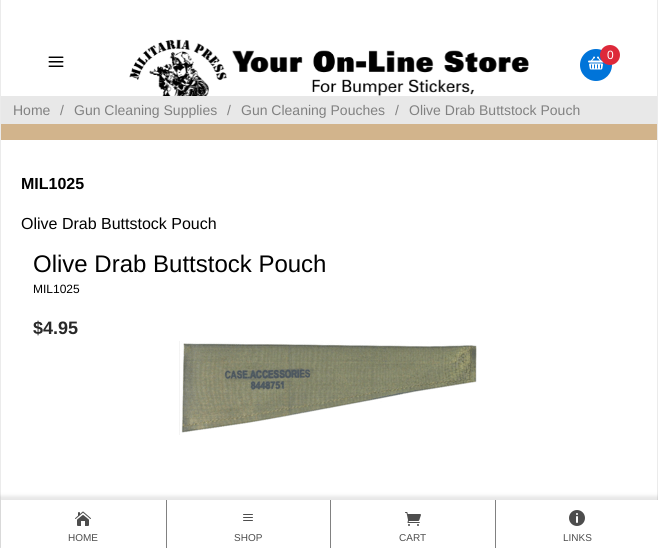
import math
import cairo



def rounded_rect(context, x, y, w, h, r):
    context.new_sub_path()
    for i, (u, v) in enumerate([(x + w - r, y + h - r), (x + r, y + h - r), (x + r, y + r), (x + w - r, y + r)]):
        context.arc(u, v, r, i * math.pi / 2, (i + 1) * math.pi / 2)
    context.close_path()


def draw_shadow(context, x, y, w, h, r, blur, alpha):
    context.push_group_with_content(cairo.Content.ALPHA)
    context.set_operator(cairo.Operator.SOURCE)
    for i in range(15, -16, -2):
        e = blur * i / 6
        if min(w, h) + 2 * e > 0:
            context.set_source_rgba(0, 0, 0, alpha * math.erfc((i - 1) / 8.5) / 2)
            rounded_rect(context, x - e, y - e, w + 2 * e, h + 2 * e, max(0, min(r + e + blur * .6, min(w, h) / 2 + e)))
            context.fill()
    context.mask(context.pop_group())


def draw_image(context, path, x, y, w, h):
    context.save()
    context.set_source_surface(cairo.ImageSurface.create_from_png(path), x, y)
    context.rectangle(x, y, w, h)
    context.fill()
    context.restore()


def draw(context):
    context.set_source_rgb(210 / 255, 180 / 255, 140 / 255)
    context.paint()
    context.set_source_rgb(235 / 255, 235 / 255, 235 / 255)
    context.rectangle(657, 0, 1, 500)
    context.fill()
    context.rectangle(0, 0, 1, 548)
    context.fill()
    context.set_source_rgb(1, 1, 1)
    context.rectangle(1, 0, 656, 96)
    context.fill()
    draw_image(context, "images/1.png", 129, 39, 400, 57)
    context.set_source_rgb(0, 116 / 255, 217 / 255)
    context.arc(596, 65, 16, 0, 2 * math.pi)
    context.fill()
    draw_image(context, "images/2.png", 588, 56, 16, 14)
    context.set_source_rgb(221 / 255, 41 / 255, 58 / 255)
    context.arc(610, 55, 10, 0, 2 * math.pi)
    context.fill()
    draw_image(context, "images/3.png", 48, 56, 16, 11)
    context.set_source_rgb(232 / 255, 232 / 255, 232 / 255)
    context.rectangle(1, 96, 656, 28)
    context.fill()
    context.set_source_rgb(1, 1, 1)
    context.rectangle(1, 140, 656, 360)
    context.fill()
    draw_image(context, "images/4.png", 179, 341, 298, 94)
    context.set_source_rgb(0, 0, 0)
    draw_shadow(context, -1, 496, 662, 52, 0, 2, 0.1)
    context.set_source_rgb(1, 1, 1)
    context.rectangle(1, 500, 657, 48)
    context.fill()
    draw_image(context, "images/5.png", 75, 511, 16, 15)
    context.set_source_rgb(129 / 255, 129 / 255, 129 / 255)
    context.rectangle(166, 500, 1, 48)
    context.fill()
    draw_image(context, "images/6.png", 243, 514, 10, 7)
    context.rectangle(330, 500, 1, 48)
    context.fill()
    draw_image(context, "images/7.png", 405, 512, 16, 14)
    context.rectangle(495, 500, 1, 48)
    context.fill()
    draw_image(context, "images/8.png", 569, 510, 16, 16)
    context.select_font_face("Liberation Sans")
    context.set_font_size(12)
    context.set_source_rgb(1, 1, 1)
    context.move_to(607, 59)
    context.show_text("0")
    context.set_font_size(14)
    context.set_source_rgb(129 / 255, 129 / 255, 129 / 255)
    context.move_to(13, 115)
    context.show_text("Home")
    context.move_to(60, 115)
    context.show_text("/")
    context.move_to(74, 115)
    context.show_text("Gun Cleaning Supplies")
    context.move_to(227, 115)
    context.show_text("/")
    context.move_to(241, 115)
    context.show_text("Gun Cleaning Pouches")
    context.move_to(395, 115)
    context.show_text("/")
    context.move_to(409, 115)
    context.show_text("Olive Drab Buttstock Pouch")
    context.select_font_face("Liberation Sans", cairo.FontSlant.NORMAL, cairo.FontWeight.BOLD)
    context.set_font_size(16)
    context.set_source_rgb(0, 0, 0)
    context.move_to(21, 189)
    context.show_text("MIL1025")
    context.select_font_face("Liberation Sans")
    context.move_to(21, 229)
    context.show_text("Olive Drab Buttstock Pouch")
    context.set_font_size(24)
    context.move_to(33, 272)
    context.show_text("Olive Drab Buttstock Pouch")
    context.set_font_size(12)
    context.move_to(33, 293)
    context.show_text("MIL1025")
    context.select_font_face("Liberation Sans", cairo.FontSlant.NORMAL, cairo.FontWeight.BOLD)
    context.set_font_size(18)
    context.set_source_rgb(41 / 255, 41 / 255, 41 / 255)
    context.move_to(33, 334)
    context.show_text("$4.95")
    context.select_font_face("Liberation Sans")
    context.set_font_size(10)
    context.set_source_rgb(77 / 255, 77 / 255, 77 / 255)
    context.move_to(68, 541)
    context.show_text("HOME")
    context.move_to(234, 541)
    context.show_text("SHOP")
    context.move_to(399, 541)
    context.show_text("CART")
    context.move_to(563, 541)
    context.show_text("LINKS")


surface = cairo.ImageSurface(cairo.Format.RGB24, 658, 548)
context = cairo.Context(surface)
options = cairo.FontOptions()
options.set_hint_metrics(cairo.HintMetrics.OFF)
options.set_hint_style(cairo.HintStyle.NONE)
context.set_font_options(options)
context.set_miter_limit(4)
draw(context)
surface.write_to_png("out.png")
